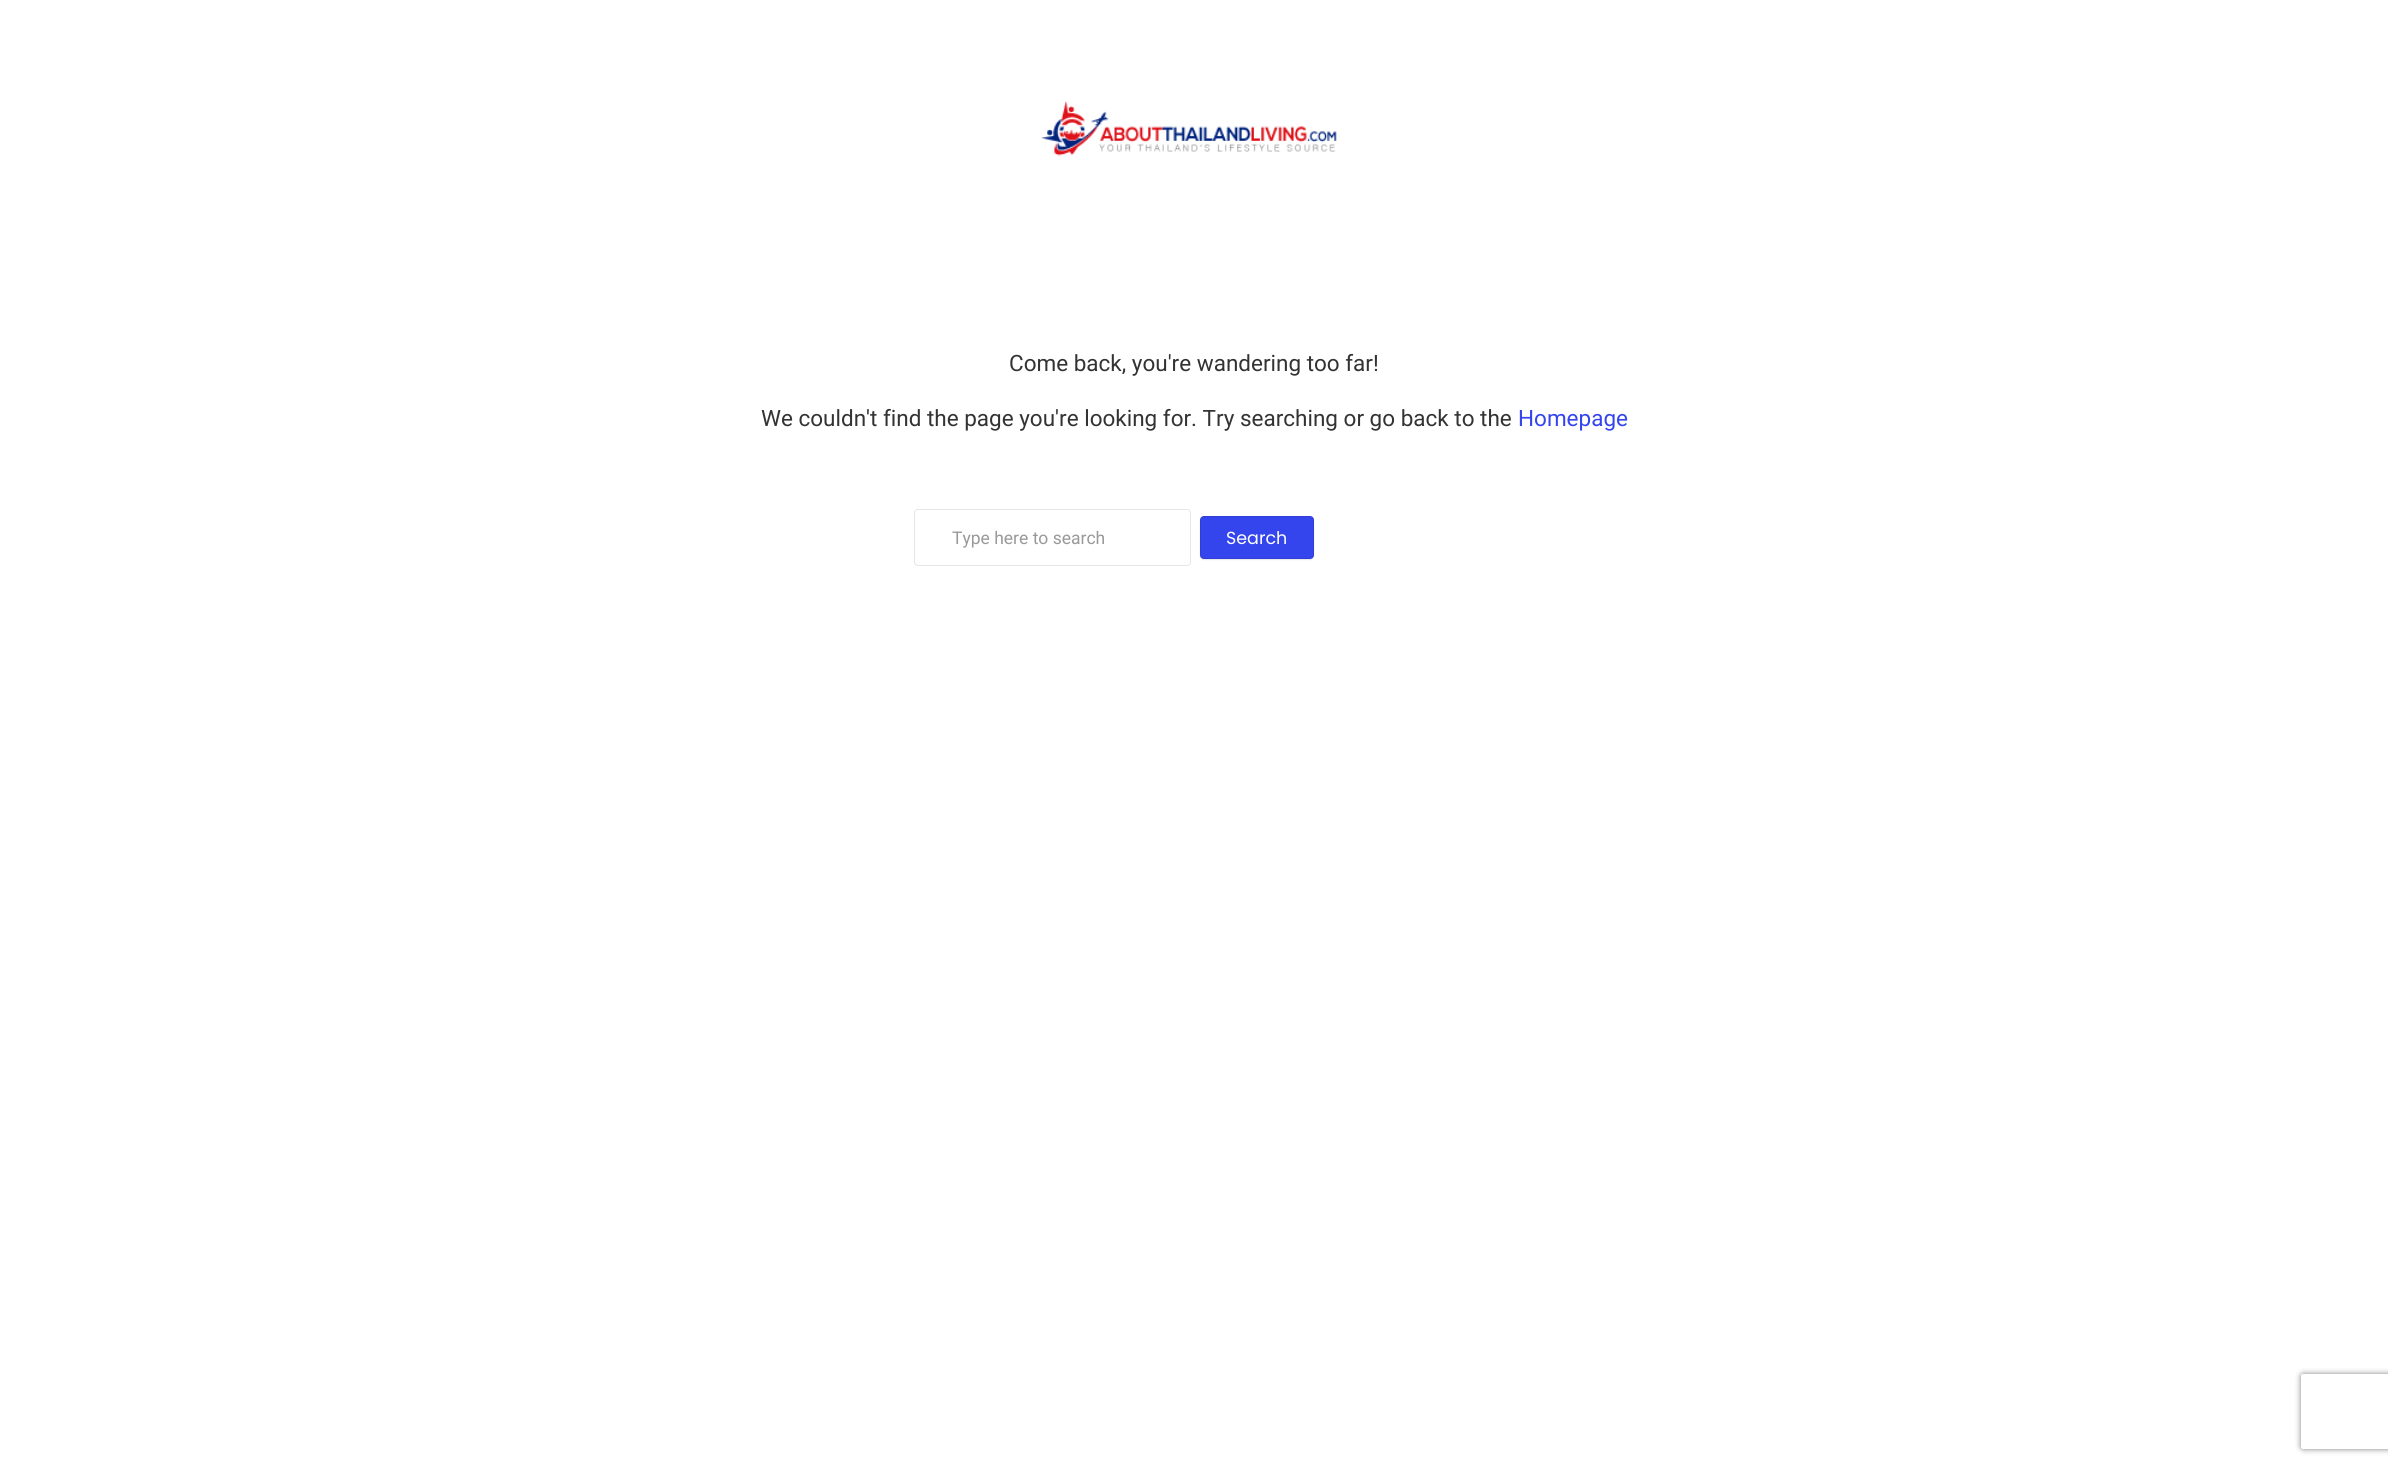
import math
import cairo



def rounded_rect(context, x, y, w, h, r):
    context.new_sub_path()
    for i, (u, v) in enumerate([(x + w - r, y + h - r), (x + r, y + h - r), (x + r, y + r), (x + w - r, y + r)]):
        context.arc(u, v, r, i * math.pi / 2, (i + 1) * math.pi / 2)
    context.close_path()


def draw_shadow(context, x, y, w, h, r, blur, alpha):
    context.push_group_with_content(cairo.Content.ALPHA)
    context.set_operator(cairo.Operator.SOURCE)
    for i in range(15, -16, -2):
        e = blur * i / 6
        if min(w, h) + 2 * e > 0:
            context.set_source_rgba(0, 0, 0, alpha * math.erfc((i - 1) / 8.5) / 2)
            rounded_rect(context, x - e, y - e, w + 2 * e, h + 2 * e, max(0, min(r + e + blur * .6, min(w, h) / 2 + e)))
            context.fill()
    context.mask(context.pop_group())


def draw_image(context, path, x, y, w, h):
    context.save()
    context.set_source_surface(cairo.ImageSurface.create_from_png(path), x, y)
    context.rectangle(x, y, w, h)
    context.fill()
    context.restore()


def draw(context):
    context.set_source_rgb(1, 1, 1)
    context.paint()
    draw_image(context, "images/1.png", 1041, 101, 296, 55)
    rounded_rect(context, 914.5, 509.5, 276, 56, 3.5)
    context.set_source_rgb(230 / 255, 230 / 255, 230 / 255)
    context.set_line_width(1)
    context.stroke()
    context.set_source_rgb(0, 0, 0)
    draw_shadow(context, 1200, 518, 114, 42, 4, 0.5, 0.1)
    context.set_source_rgb(53 / 255, 69 / 255, 238 / 255)
    rounded_rect(context, 1200, 516, 114, 43, 4)
    context.fill()
    rounded_rect(context, 1200.5, 516.5, 113, 42, 3.5)
    context.set_source_rgba(0, 0, 0, 0.1)
    context.stroke()
    context.save()
    context.set_fill_rule(cairo.FillRule.EVEN_ODD)
    context.new_path()
    context.move_to(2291, 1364)
    context.line_to(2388, 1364)
    context.line_to(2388, 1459)
    context.line_to(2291, 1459)
    context.close_path()
    context.move_to(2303.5, 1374)
    context.line_to(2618.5, 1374)
    context.curve_to(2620, 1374, 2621, 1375, 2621, 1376.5)
    context.line_to(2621, 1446.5)
    context.curve_to(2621, 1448, 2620, 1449, 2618.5, 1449)
    context.line_to(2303.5, 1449)
    context.curve_to(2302, 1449, 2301, 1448, 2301, 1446.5)
    context.line_to(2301, 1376.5)
    context.curve_to(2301, 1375, 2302, 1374, 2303.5, 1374)
    context.close_path()
    context.clip()
    context.set_source_rgb(128 / 255, 128 / 255, 128 / 255)
    draw_shadow(context, 2301, 1374, 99, 75, 2.5, 3, 1)
    context.restore()
    context.select_font_face("Roboto")
    context.set_font_size(22.5)
    context.set_source_rgb(51 / 255, 51 / 255, 51 / 255)
    context.move_to(1009, 371)
    context.show_text("Come back, you're wandering too far!")
    context.move_to(761, 426)
    context.show_text("We couldn't find the page you're looking for. Try searching or go back to the")
    context.set_source_rgb(53 / 255, 69 / 255, 238 / 255)
    context.move_to(1518, 426)
    context.show_text("Homepage")
    context.set_font_size(17.5)
    context.set_source_rgb(153 / 255, 153 / 255, 153 / 255)
    context.move_to(952, 544)
    context.show_text("Type here to search")
    context.select_font_face("Poppins")
    context.set_source_rgb(1, 1, 1)
    context.move_to(1226, 544)
    context.show_text("Search")


surface = cairo.ImageSurface(cairo.Format.RGB24, 2388, 1466)
context = cairo.Context(surface)
options = cairo.FontOptions()
options.set_hint_metrics(cairo.HintMetrics.OFF)
options.set_hint_style(cairo.HintStyle.NONE)
context.set_font_options(options)
context.set_miter_limit(4)
draw(context)
surface.write_to_png("out.png")
